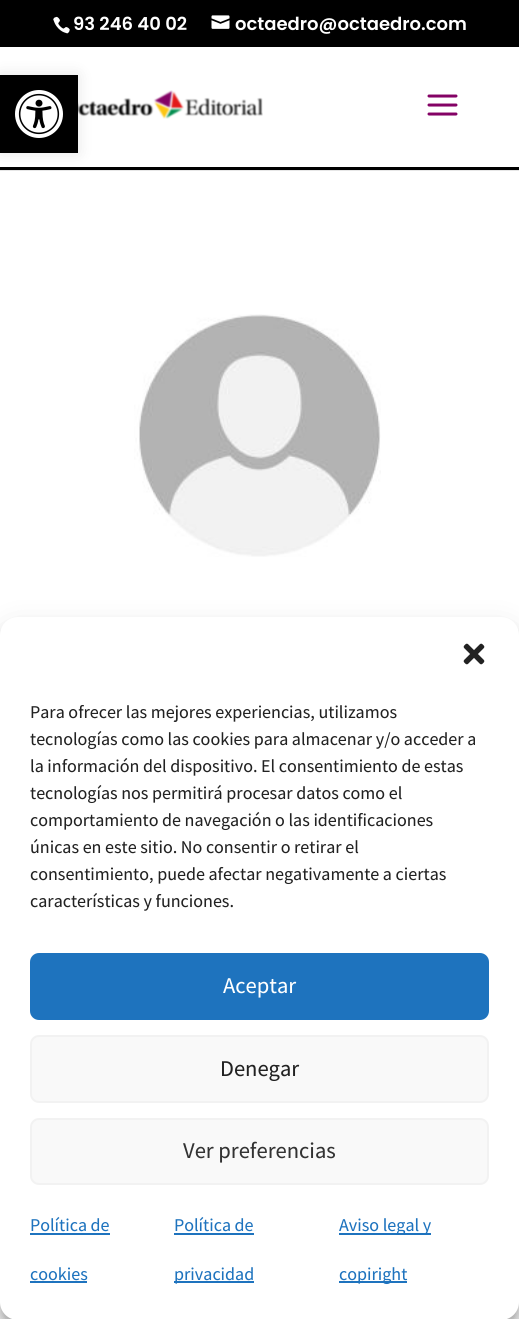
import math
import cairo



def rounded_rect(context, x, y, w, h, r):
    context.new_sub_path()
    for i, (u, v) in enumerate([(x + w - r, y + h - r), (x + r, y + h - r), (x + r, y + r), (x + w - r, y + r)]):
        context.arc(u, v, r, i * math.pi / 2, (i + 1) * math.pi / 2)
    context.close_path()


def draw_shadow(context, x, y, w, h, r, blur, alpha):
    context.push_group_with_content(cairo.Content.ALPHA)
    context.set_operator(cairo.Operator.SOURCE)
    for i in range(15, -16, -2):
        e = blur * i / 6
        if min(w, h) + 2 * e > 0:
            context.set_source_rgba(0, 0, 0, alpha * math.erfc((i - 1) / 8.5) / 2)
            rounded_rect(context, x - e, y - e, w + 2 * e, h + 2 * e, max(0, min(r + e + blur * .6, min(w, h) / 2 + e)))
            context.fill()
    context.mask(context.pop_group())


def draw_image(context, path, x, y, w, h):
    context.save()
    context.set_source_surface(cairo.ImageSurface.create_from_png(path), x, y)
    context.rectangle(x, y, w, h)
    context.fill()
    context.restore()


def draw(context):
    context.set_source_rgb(1, 1, 1)
    context.paint()
    context.set_source_rgb(0, 0, 0)
    context.rectangle(0, 0, 519, 47)
    context.fill()
    draw_image(context, "images/1.png", 53, 16, 17, 18)
    draw_image(context, "images/2.png", 211, 15, 19, 14)
    context.set_source_rgb(230 / 255, 230 / 255, 230 / 255)
    context.rectangle(0, 170, 519, 1)
    context.fill()
    context.set_source_rgb(0, 0, 0)
    context.rectangle(0, 167, 519, 3)
    context.fill()
    draw_image(context, "images/3.png", 78, 90, 185, 29)
    draw_image(context, "images/4.png", 427, 94, 31, 22)
    draw_image(context, "images/5.png", 134, 314, 247, 243)
    context.set_source_rgb(0, 0, 0)
    draw_shadow(context, 0, 75, 78, 78, 0, 7.5, 0.1)
    context.set_source_rgb(0, 0, 0)
    context.rectangle(0, 75, 78, 78)
    context.fill()
    draw_image(context, "images/6.png", 15, 90, 48, 48)
    context.set_source_rgb(0, 0, 0)
    draw_shadow(context, 0, 626, 519, 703, 18, 4.5, 0.23)
    draw_shadow(context, 0, 632, 519, 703, 18, 15, 0.19)
    context.set_source_rgb(1, 1, 1)
    rounded_rect(context, 0, 617, 519, 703, 18)
    context.fill()
    draw_image(context, "images/7.png", 463, 643, 22, 22)
    context.set_source_rgb(30 / 255, 115 / 255, 190 / 255)
    rounded_rect(context, 31, 954, 457, 65, 8)
    context.fill_preserve()
    context.stroke()
    context.set_source_rgb(249 / 255, 249 / 255, 249 / 255)
    rounded_rect(context, 31, 1036, 457, 66, 8)
    context.fill_preserve()
    context.set_source_rgb(242 / 255, 242 / 255, 242 / 255)
    context.stroke()
    context.set_source_rgb(249 / 255, 249 / 255, 249 / 255)
    rounded_rect(context, 31, 1119, 457, 65, 8)
    context.fill_preserve()
    context.set_source_rgb(242 / 255, 242 / 255, 242 / 255)
    context.stroke()
    context.set_source_rgb(30 / 255, 115 / 255, 190 / 255)
    context.rectangle(30, 1233, 80, 2)
    context.fill()
    context.rectangle(30, 1281, 57, 2)
    context.fill()
    context.rectangle(174, 1233, 80, 2)
    context.fill()
    context.rectangle(174, 1281, 80, 2)
    context.fill()
    context.rectangle(339, 1233, 92, 2)
    context.fill()
    context.rectangle(339, 1281, 68, 2)
    context.fill()
    context.select_font_face("Poppins SemiBold")
    context.set_font_size(18)
    context.set_source_rgb(1, 1, 1)
    context.move_to(73, 30)
    context.show_text("93 246 40 02")
    context.move_to(235, 30)
    context.show_text("octaedro@octaedro.com")
    context.select_font_face("Assistant Medium")
    context.set_source_rgb(34 / 255, 34 / 255, 34 / 255)
    context.move_to(30, 718)
    context.show_text("Para ofrecer las mejores experiencias, utilizamos")
    context.move_to(30, 745)
    context.show_text("tecnologías como las cookies para almacenar y/o acceder a")
    context.move_to(30, 772)
    context.show_text("la información del dispositivo. El consentimiento de estas")
    context.move_to(30, 799)
    context.show_text("tecnologías nos permitirá procesar datos como el")
    context.move_to(30, 826)
    context.show_text("comportamiento de navegación o las identificaciones")
    context.move_to(30, 853)
    context.show_text("únicas en este sitio. No consentir o retirar el")
    context.move_to(30, 880)
    context.show_text("consentimiento, puede afectar negativamente a ciertas")
    context.move_to(30, 907)
    context.show_text("características y funciones.")
    context.set_font_size(22.5)
    context.set_source_rgb(1, 1, 1)
    context.move_to(223, 993)
    context.show_text("Aceptar")
    context.set_source_rgb(34 / 255, 34 / 255, 34 / 255)
    context.move_to(220, 1076)
    context.show_text("Denegar")
    context.set_source_rgb(51 / 255, 51 / 255, 51 / 255)
    context.move_to(183, 1158)
    context.show_text("Ver preferencias")
    context.set_font_size(18)
    context.set_source_rgb(30 / 255, 115 / 255, 190 / 255)
    context.move_to(30, 1231)
    context.show_text("Política de")
    context.move_to(30, 1280)
    context.show_text("cookies")
    context.move_to(174, 1231)
    context.show_text("Política de")
    context.move_to(174, 1280)
    context.show_text("privacidad")
    context.move_to(339, 1231)
    context.show_text("Aviso legal y")
    context.move_to(339, 1280)
    context.show_text("copiright")


surface = cairo.ImageSurface(cairo.Format.RGB24, 519, 1319)
context = cairo.Context(surface)
options = cairo.FontOptions()
options.set_hint_metrics(cairo.HintMetrics.OFF)
options.set_hint_style(cairo.HintStyle.NONE)
context.set_font_options(options)
context.set_miter_limit(4)
draw(context)
surface.write_to_png("out.png")
